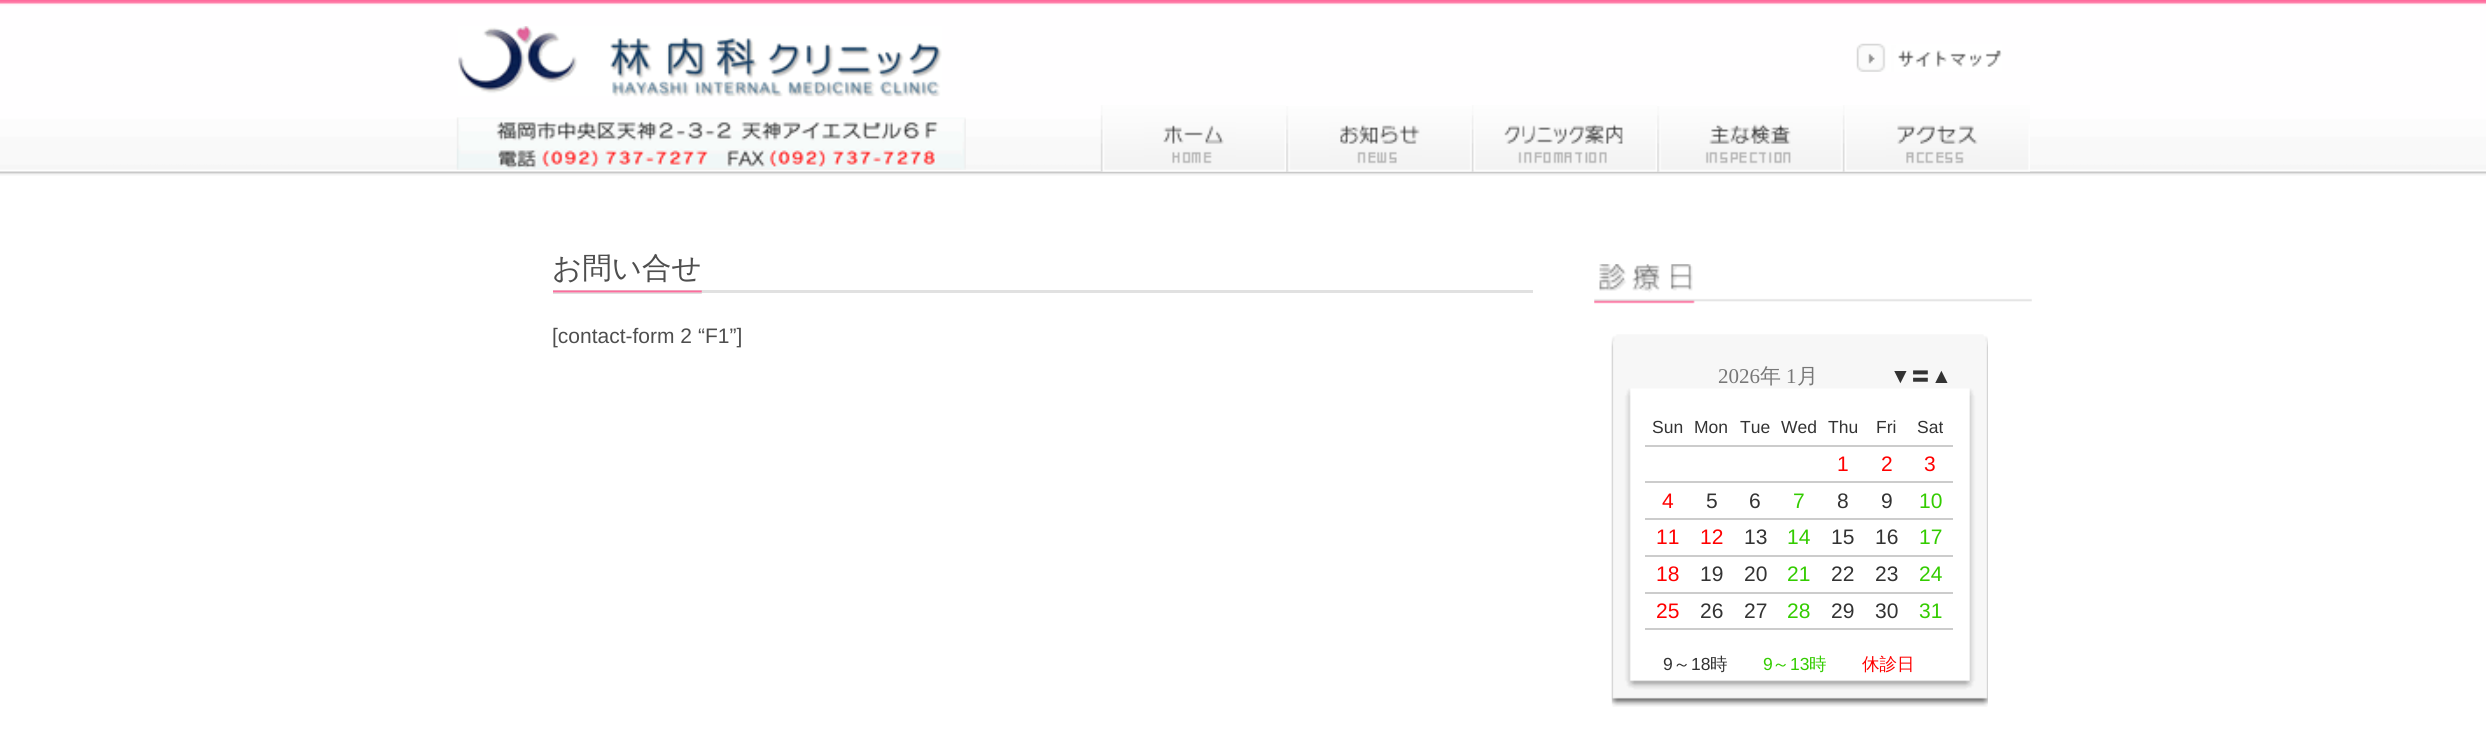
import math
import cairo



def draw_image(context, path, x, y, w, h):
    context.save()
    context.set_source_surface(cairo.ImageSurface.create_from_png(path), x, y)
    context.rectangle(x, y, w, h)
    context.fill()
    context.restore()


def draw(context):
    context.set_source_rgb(1, 1, 1)
    context.paint()
    draw_image(context, "images/1.png", 0, 0, 2486, 176)
    draw_image(context, "images/2.png", 458, 26, 484, 71)
    draw_image(context, "images/3.png", 456, 117, 510, 53)
    draw_image(context, "images/4.png", 1856, 43, 146, 29)
    draw_image(context, "images/5.png", 1100, 105, 186, 67)
    draw_image(context, "images/6.png", 1286, 106, 186, 66)
    draw_image(context, "images/7.png", 1471, 105, 186, 67)
    draw_image(context, "images/8.png", 1657, 106, 186, 66)
    draw_image(context, "images/9.png", 1842, 105, 188, 67)
    context.set_source_rgb(225 / 255, 225 / 255, 225 / 255)
    context.rectangle(553, 290, 980, 3)
    context.fill()
    draw_image(context, "images/10.png", 553, 290, 149, 4)
    draw_image(context, "images/11.png", 1594, 264, 438, 40)
    draw_image(context, "images/12.png", 1611, 334, 377, 373)
    context.set_source_rgb(204 / 255, 204 / 255, 204 / 255)
    context.rectangle(1645, 445, 308, 2)
    context.fill()
    context.rectangle(1645, 481, 308, 2)
    context.fill()
    context.rectangle(1645, 518, 308, 2)
    context.fill()
    context.rectangle(1645, 555, 308, 2)
    context.fill()
    context.rectangle(1645, 592, 308, 2)
    context.fill()
    context.rectangle(1645, 628, 308, 2)
    context.fill()
    context.select_font_face("WenQuanYi Zen Hei Medium")
    context.set_font_size(29.5)
    context.set_source_rgb(78 / 255, 78 / 255, 78 / 255)
    context.move_to(552, 278)
    context.show_text("お問い合せ")
    context.select_font_face("Liberation Sans")
    context.set_font_size(21)
    context.move_to(552, 343)
    context.show_text("[contact-form 2 “F1”]")
    context.select_font_face("Liberation Serif")
    context.set_source_rgb(119 / 255, 119 / 255, 119 / 255)
    context.move_to(1718, 383)
    context.show_text("2026")
    context.select_font_face("WenQuanYi Zen Hei Medium")
    context.move_to(1760, 383)
    context.show_text("年")
    context.select_font_face("Liberation Serif")
    context.move_to(1786, 383)
    context.show_text("1")
    context.select_font_face("WenQuanYi Zen Hei Medium")
    context.move_to(1797, 383)
    context.show_text("月")
    context.select_font_face("Liberation Serif")
    context.set_source_rgb(51 / 255, 51 / 255, 51 / 255)
    context.move_to(1890, 383)
    context.show_text("▼")
    context.select_font_face("WenQuanYi Zen Hei Medium")
    context.move_to(1910, 383)
    context.show_text("〓")
    context.select_font_face("Liberation Serif")
    context.move_to(1931, 383)
    context.show_text("▲")
    context.select_font_face("Liberation Sans")
    context.set_font_size(17.5)
    context.move_to(1652, 433)
    context.show_text("Sun")
    context.move_to(1694, 433)
    context.show_text("Mon")
    context.move_to(1740, 433)
    context.show_text("Tue")
    context.move_to(1781, 433)
    context.show_text("Wed")
    context.move_to(1828, 433)
    context.show_text("Thu")
    context.move_to(1876, 433)
    context.show_text("Fri")
    context.move_to(1917, 433)
    context.show_text("Sat")
    context.set_font_size(21)
    context.set_source_rgb(1, 0, 0)
    context.move_to(1837, 471)
    context.show_text("1")
    context.move_to(1881, 471)
    context.show_text("2")
    context.move_to(1924, 471)
    context.show_text("3")
    context.move_to(1662, 508)
    context.show_text("4")
    context.set_source_rgb(51 / 255, 51 / 255, 51 / 255)
    context.move_to(1706, 508)
    context.show_text("5")
    context.move_to(1749, 508)
    context.show_text("6")
    context.set_source_rgb(51 / 255, 204 / 255, 0)
    context.move_to(1793, 508)
    context.show_text("7")
    context.set_source_rgb(51 / 255, 51 / 255, 51 / 255)
    context.move_to(1837, 508)
    context.show_text("8")
    context.move_to(1881, 508)
    context.show_text("9")
    context.set_source_rgb(51 / 255, 204 / 255, 0)
    context.move_to(1919, 508)
    context.show_text("10")
    context.set_source_rgb(1, 0, 0)
    context.move_to(1656, 544)
    context.show_text("11")
    context.move_to(1700, 544)
    context.show_text("12")
    context.set_source_rgb(51 / 255, 51 / 255, 51 / 255)
    context.move_to(1744, 544)
    context.show_text("13")
    context.set_source_rgb(51 / 255, 204 / 255, 0)
    context.move_to(1787, 544)
    context.show_text("14")
    context.set_source_rgb(51 / 255, 51 / 255, 51 / 255)
    context.move_to(1831, 544)
    context.show_text("15")
    context.move_to(1875, 544)
    context.show_text("16")
    context.set_source_rgb(51 / 255, 204 / 255, 0)
    context.move_to(1919, 544)
    context.show_text("17")
    context.set_source_rgb(1, 0, 0)
    context.move_to(1656, 581)
    context.show_text("18")
    context.set_source_rgb(51 / 255, 51 / 255, 51 / 255)
    context.move_to(1700, 581)
    context.show_text("19")
    context.move_to(1744, 581)
    context.show_text("20")
    context.set_source_rgb(51 / 255, 204 / 255, 0)
    context.move_to(1787, 581)
    context.show_text("21")
    context.set_source_rgb(51 / 255, 51 / 255, 51 / 255)
    context.move_to(1831, 581)
    context.show_text("22")
    context.move_to(1875, 581)
    context.show_text("23")
    context.set_source_rgb(51 / 255, 204 / 255, 0)
    context.move_to(1919, 581)
    context.show_text("24")
    context.set_source_rgb(1, 0, 0)
    context.move_to(1656, 618)
    context.show_text("25")
    context.set_source_rgb(51 / 255, 51 / 255, 51 / 255)
    context.move_to(1700, 618)
    context.show_text("26")
    context.move_to(1744, 618)
    context.show_text("27")
    context.set_source_rgb(51 / 255, 204 / 255, 0)
    context.move_to(1787, 618)
    context.show_text("28")
    context.set_source_rgb(51 / 255, 51 / 255, 51 / 255)
    context.move_to(1831, 618)
    context.show_text("29")
    context.move_to(1875, 618)
    context.show_text("30")
    context.set_source_rgb(51 / 255, 204 / 255, 0)
    context.move_to(1919, 618)
    context.show_text("31")
    context.set_font_size(17.5)
    context.set_source_rgb(51 / 255, 51 / 255, 51 / 255)
    context.move_to(1663, 670)
    context.show_text("9")
    context.select_font_face("WenQuanYi Zen Hei Medium")
    context.move_to(1673, 670)
    context.show_text("～")
    context.select_font_face("Liberation Sans")
    context.move_to(1691, 670)
    context.show_text("18")
    context.select_font_face("WenQuanYi Zen Hei Medium")
    context.move_to(1710, 670)
    context.show_text("時")
    context.select_font_face("Liberation Sans")
    context.set_source_rgb(51 / 255, 204 / 255, 0)
    context.move_to(1763, 670)
    context.show_text("9")
    context.select_font_face("WenQuanYi Zen Hei Medium")
    context.move_to(1772, 670)
    context.show_text("～")
    context.select_font_face("Liberation Sans")
    context.move_to(1790, 670)
    context.show_text("13")
    context.select_font_face("WenQuanYi Zen Hei Medium")
    context.move_to(1809, 670)
    context.show_text("時")
    context.set_source_rgb(1, 0, 0)
    context.move_to(1862, 670)
    context.show_text("休診日")


surface = cairo.ImageSurface(cairo.Format.RGB24, 2486, 738)
context = cairo.Context(surface)
options = cairo.FontOptions()
options.set_hint_metrics(cairo.HintMetrics.OFF)
options.set_hint_style(cairo.HintStyle.NONE)
context.set_font_options(options)
context.set_miter_limit(4)
draw(context)
surface.write_to_png("out.png")
